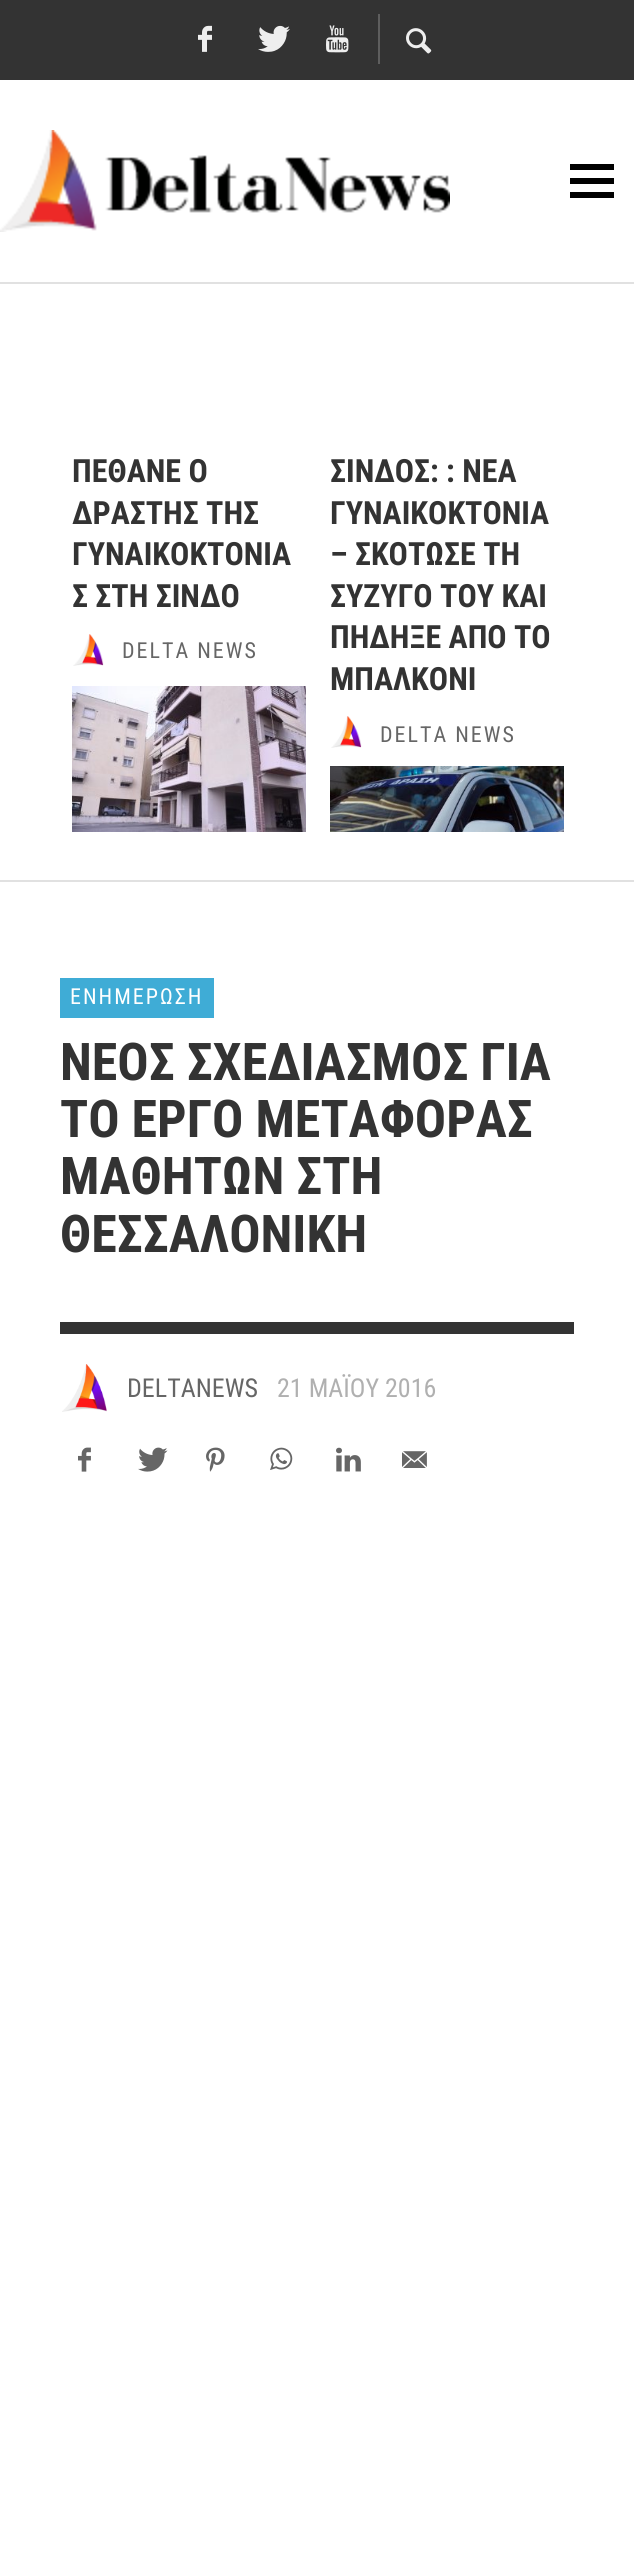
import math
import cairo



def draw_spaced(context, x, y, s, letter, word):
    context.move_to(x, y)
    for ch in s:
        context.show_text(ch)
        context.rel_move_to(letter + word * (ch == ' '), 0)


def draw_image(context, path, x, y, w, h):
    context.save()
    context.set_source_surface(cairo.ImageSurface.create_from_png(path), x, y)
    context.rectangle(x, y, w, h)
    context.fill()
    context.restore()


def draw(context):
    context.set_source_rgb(1, 1, 1)
    context.paint()
    context.set_source_rgb(225 / 255, 225 / 255, 225 / 255)
    context.rectangle(0, 282, 634, 2)
    context.fill()
    context.set_source_rgb(51 / 255, 51 / 255, 51 / 255)
    context.rectangle(0, 0, 634, 80)
    context.fill()
    draw_image(context, "images/1.png", 198, 25, 14, 27)
    draw_image(context, "images/2.png", 258, 25, 32, 27)
    draw_image(context, "images/3.png", 326, 25, 23, 28)
    context.set_source_rgb(94 / 255, 94 / 255, 94 / 255)
    context.rectangle(378, 14, 2, 50)
    context.fill()
    draw_image(context, "images/4.png", 406, 28, 26, 26)
    draw_image(context, "images/5.png", 0, 130, 450, 102)
    context.set_source_rgb(0, 0, 0)
    context.rectangle(570, 178, 44, 6)
    context.fill()
    context.rectangle(570, 164, 44, 6)
    context.fill()
    context.rectangle(570, 192, 44, 6)
    context.fill()
    context.set_source_rgb(225 / 255, 225 / 255, 225 / 255)
    context.rectangle(0, 880, 634, 2)
    context.fill()
    draw_image(context, "images/6.png", 73, 634, 31, 32)
    draw_image(context, "images/7.png", 72, 686, 234, 146)
    draw_image(context, "images/6.png", 331, 716, 31, 32)
    draw_image(context, "images/8.png", 330, 766, 234, 66)
    context.set_source_rgb(63 / 255, 172 / 255, 214 / 255)
    context.rectangle(60, 978, 154, 40)
    context.fill()
    context.set_source_rgb(51 / 255, 51 / 255, 51 / 255)
    context.rectangle(60, 1322, 514, 12)
    context.fill()
    draw_image(context, "images/9.png", 62, 1364, 45, 48)
    draw_image(context, "images/10.png", 78, 1447, 13, 25)
    draw_image(context, "images/11.png", 138, 1447, 30, 25)
    draw_image(context, "images/12.png", 206, 1447, 19, 25)
    draw_image(context, "images/13.png", 270, 1447, 23, 23)
    draw_image(context, "images/14.png", 336, 1447, 25, 25)
    draw_image(context, "images/15.png", 402, 1451, 25, 17)
    context.select_font_face("Roboto Condensed", cairo.FontSlant.NORMAL, cairo.FontWeight.BOLD)
    context.set_font_size(32)
    context.move_to(72, 482)
    context.show_text("ΠΕΘΑΝΕ Ο")
    context.move_to(72, 524)
    context.show_text("ΔΡΑΣΤΗΣ ΤΗΣ")
    context.move_to(72, 565)
    context.show_text("ΓΥΝΑΙΚΟΚΤΟΝΙΑ")
    context.move_to(72, 607)
    context.show_text("Σ ΣΤΗ ΣΙΝΔΟ")
    context.select_font_face("Roboto Condensed")
    context.set_font_size(22)
    context.set_source_rgb(102 / 255, 102 / 255, 102 / 255)
    draw_spaced(context, 122, 658, "DELTA NEWS", 2, 0)
    context.select_font_face("Roboto Condensed", cairo.FontSlant.NORMAL, cairo.FontWeight.BOLD)
    context.set_font_size(32)
    context.set_source_rgb(51 / 255, 51 / 255, 51 / 255)
    context.move_to(330, 482)
    context.show_text("ΣΙΝΔΟΣ: : ΝΕΑ")
    context.move_to(330, 524)
    context.show_text("ΓΥΝΑΙΚΟΚΤΟΝΙΑ")
    context.move_to(330, 565)
    context.show_text("– ΣΚΟΤΩΣΕ ΤΗ")
    context.move_to(330, 607)
    context.show_text("ΣΥΖΥΓΟ ΤΟΥ ΚΑΙ")
    context.move_to(330, 648)
    context.show_text("ΠΗΔΗΞΕ ΑΠΟ ΤΟ")
    context.move_to(330, 690)
    context.show_text("ΜΠΑΛΚΟΝΙ")
    context.select_font_face("Roboto Condensed")
    context.set_font_size(22)
    context.set_source_rgb(102 / 255, 102 / 255, 102 / 255)
    draw_spaced(context, 380, 742, "DELTA NEWS", 2, 0)
    context.set_source_rgb(1, 1, 1)
    draw_spaced(context, 70, 1004, "ΕΝΗΜΕΡΩΣΗ", 2, 0)
    context.select_font_face("Roboto Condensed", cairo.FontSlant.NORMAL, cairo.FontWeight.BOLD)
    context.set_font_size(52)
    context.set_source_rgb(51 / 255, 51 / 255, 51 / 255)
    context.move_to(60, 1080)
    context.show_text("ΝΕΟΣ ΣΧΕΔΙΑΣΜΟΣ ΓΙΑ")
    context.move_to(60, 1137)
    context.show_text("ΤΟ ΕΡΓΟ ΜΕΤΑΦΟΡΑΣ")
    context.move_to(60, 1194)
    context.show_text("ΜΑΘΗΤΩΝ ΣΤΗ")
    context.move_to(60, 1252)
    context.show_text("ΘΕΣΣΑΛΟΝΙΚΗ")
    context.select_font_face("Roboto Condensed")
    context.set_font_size(26)
    context.set_source_rgb(102 / 255, 102 / 255, 102 / 255)
    context.move_to(127, 1397)
    context.show_text("DELTANEWS")
    context.set_source_rgb(176 / 255, 176 / 255, 176 / 255)
    context.move_to(277, 1397)
    context.show_text("21 ΜΑΪΟΥ 2016")


surface = cairo.ImageSurface(cairo.Format.RGB24, 634, 2550)
context = cairo.Context(surface)
options = cairo.FontOptions()
options.set_hint_metrics(cairo.HintMetrics.OFF)
options.set_hint_style(cairo.HintStyle.NONE)
context.set_font_options(options)
context.set_miter_limit(4)
draw(context)
surface.write_to_png("out.png")
